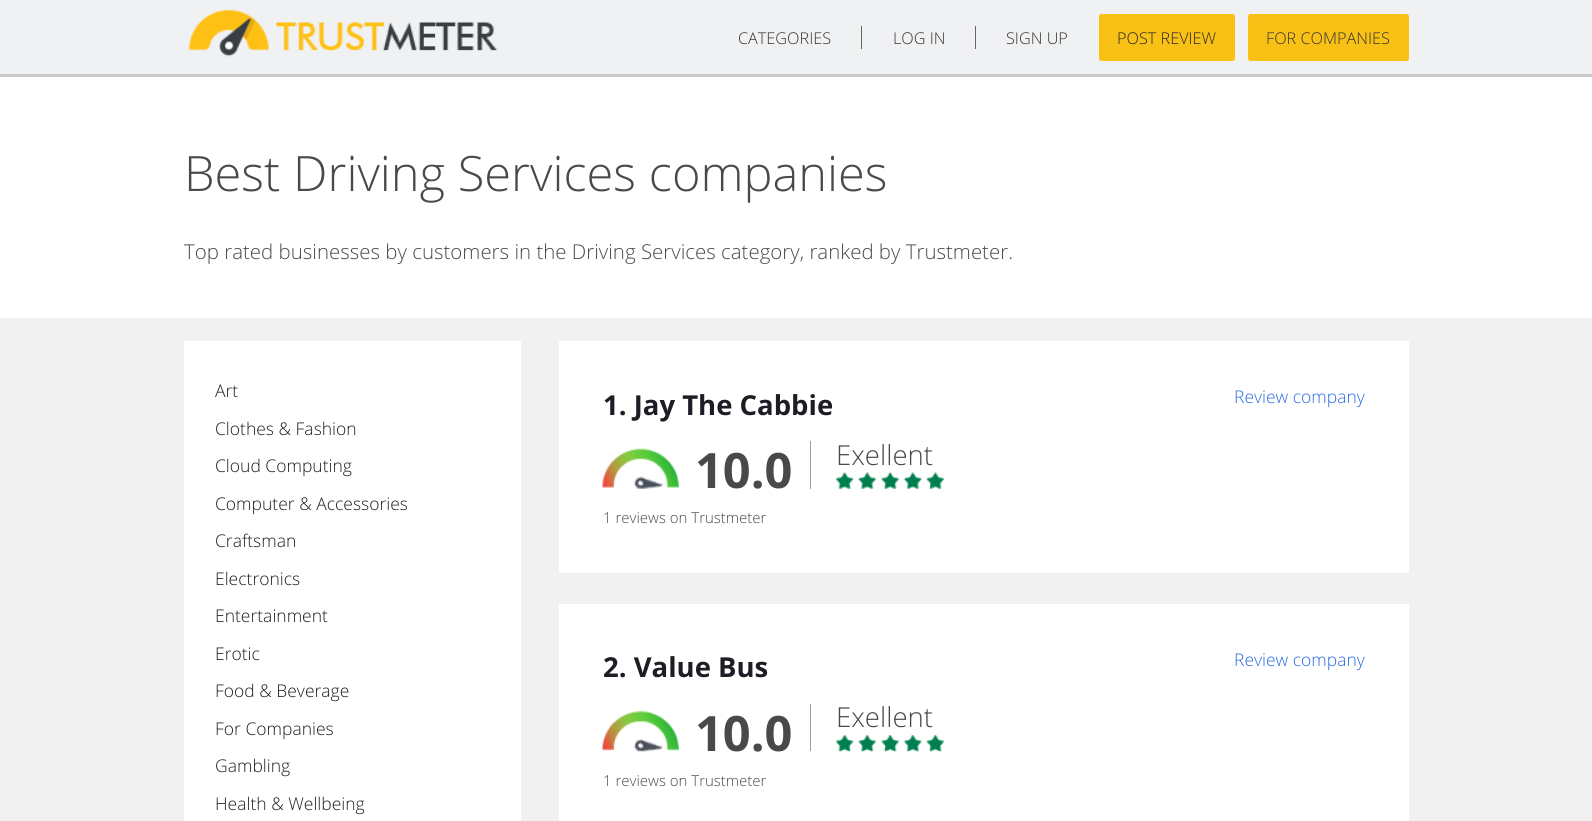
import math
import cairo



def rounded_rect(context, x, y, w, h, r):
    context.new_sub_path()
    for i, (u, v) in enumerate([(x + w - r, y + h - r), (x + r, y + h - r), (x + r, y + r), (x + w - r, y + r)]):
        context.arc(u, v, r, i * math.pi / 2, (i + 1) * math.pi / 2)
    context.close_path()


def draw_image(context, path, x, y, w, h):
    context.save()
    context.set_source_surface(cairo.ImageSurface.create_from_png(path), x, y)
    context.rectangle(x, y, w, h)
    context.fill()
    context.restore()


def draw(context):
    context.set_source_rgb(1, 1, 1)
    context.paint()
    context.set_source_rgb(240 / 255, 241 / 255, 242 / 255)
    context.rectangle(0, 0, 1592, 74)
    context.fill()
    context.set_source_rgb(202 / 255, 202 / 255, 202 / 255)
    context.rectangle(0, 74, 1592, 3)
    context.fill()
    draw_image(context, "images/1.png", 188, 9, 310, 48)
    context.set_source_rgb(103 / 255, 103 / 255, 103 / 255)
    context.rectangle(861, 26, 1, 23)
    context.fill()
    context.rectangle(975, 26, 1, 23)
    context.fill()
    context.set_source_rgb(249 / 255, 192 / 255, 22 / 255)
    rounded_rect(context, 1099, 14, 136, 47, 2.5)
    context.fill()
    rounded_rect(context, 1248, 14, 161, 47, 2.5)
    context.fill()
    context.set_source_rgb(241 / 255, 241 / 255, 241 / 255)
    context.rectangle(0, 318, 1592, 503)
    context.fill()
    context.set_source_rgb(1, 1, 1)
    context.rectangle(184, 341, 337, 480)
    context.fill()
    context.rectangle(559, 341, 850, 232)
    context.fill()
    draw_image(context, "images/2.png", 602, 448, 77, 41)
    context.set_source_rgb(161 / 255, 161 / 255, 161 / 255)
    context.rectangle(810, 441, 1, 48)
    context.fill()
    draw_image(context, "images/3.png", 836, 472, 108, 17)
    context.set_source_rgb(1, 1, 1)
    context.rectangle(559, 604, 850, 217)
    context.fill()
    draw_image(context, "images/4.png", 602, 711, 77, 41)
    context.set_source_rgb(161 / 255, 161 / 255, 161 / 255)
    context.rectangle(810, 704, 1, 47)
    context.fill()
    draw_image(context, "images/5.png", 836, 735, 108, 17)
    context.select_font_face("Open Sans Light")
    context.set_font_size(16.25)
    context.set_source_rgb(53 / 255, 53 / 255, 53 / 255)
    context.move_to(738, 44)
    context.show_text("CATEGORIES")
    context.move_to(893, 44)
    context.show_text("LOG IN")
    context.move_to(1006, 44)
    context.show_text("SIGN UP")
    context.set_source_rgb(40 / 255, 40 / 255, 40 / 255)
    context.move_to(1117, 44)
    context.show_text("POST REVIEW")
    context.set_source_rgb(53 / 255, 53 / 255, 53 / 255)
    context.move_to(1266, 44)
    context.show_text("FOR COMPANIES")
    context.set_font_size(48.75)
    context.set_source_rgb(73 / 255, 73 / 255, 73 / 255)
    context.move_to(184, 191)
    context.show_text("Best Driving Services companies")
    context.set_font_size(20.45)
    context.move_to(184, 259)
    context.show_text("Top rated businesses by customers in the Driving Services category, ranked by Trustmeter.")
    context.set_font_size(17.5)
    context.set_source_rgb(29 / 255, 29 / 255, 37 / 255)
    context.move_to(215, 397)
    context.show_text("Art")
    context.move_to(215, 435)
    context.show_text("Clothes & Fashion")
    context.move_to(215, 472)
    context.show_text("Cloud Computing")
    context.move_to(215, 510)
    context.show_text("Computer & Accessories")
    context.move_to(215, 547)
    context.show_text("Craftsman")
    context.move_to(215, 585)
    context.show_text("Electronics")
    context.move_to(215, 622)
    context.show_text("Entertainment")
    context.move_to(215, 660)
    context.show_text("Erotic")
    context.move_to(215, 697)
    context.show_text("Food & Beverage")
    context.move_to(215, 735)
    context.show_text("For Companies")
    context.move_to(215, 772)
    context.show_text("Gambling")
    context.move_to(215, 810)
    context.show_text("Health & Wellbeing")
    context.select_font_face("Open Sans", cairo.FontSlant.NORMAL, cairo.FontWeight.BOLD)
    context.set_font_size(27.5)
    context.move_to(603, 415)
    context.show_text("1. Jay The Cabbie")
    context.select_font_face("Open Sans Light")
    context.set_font_size(17.5)
    context.set_source_rgb(41 / 255, 106 / 255, 228 / 255)
    context.move_to(1234, 403)
    context.show_text("Review company")
    context.select_font_face("Open Sans", cairo.FontSlant.NORMAL, cairo.FontWeight.BOLD)
    context.set_font_size(48.75)
    context.set_source_rgb(73 / 255, 73 / 255, 73 / 255)
    context.move_to(695, 488)
    context.show_text("10.0")
    context.select_font_face("Open Sans Light")
    context.set_font_size(27.5)
    context.move_to(836, 465)
    context.show_text("Exellent")
    context.set_font_size(15)
    context.move_to(603, 523)
    context.show_text("1 reviews on Trustmeter")
    context.select_font_face("Open Sans", cairo.FontSlant.NORMAL, cairo.FontWeight.BOLD)
    context.set_font_size(27.5)
    context.set_source_rgb(29 / 255, 29 / 255, 37 / 255)
    context.move_to(603, 677)
    context.show_text("2. Value Bus")
    context.select_font_face("Open Sans Light")
    context.set_font_size(17.5)
    context.set_source_rgb(41 / 255, 106 / 255, 228 / 255)
    context.move_to(1234, 666)
    context.show_text("Review company")
    context.select_font_face("Open Sans", cairo.FontSlant.NORMAL, cairo.FontWeight.BOLD)
    context.set_font_size(48.75)
    context.set_source_rgb(73 / 255, 73 / 255, 73 / 255)
    context.move_to(695, 751)
    context.show_text("10.0")
    context.select_font_face("Open Sans Light")
    context.set_font_size(27.5)
    context.move_to(836, 727)
    context.show_text("Exellent")
    context.set_font_size(15)
    context.move_to(603, 786)
    context.show_text("1 reviews on Trustmeter")


surface = cairo.ImageSurface(cairo.Format.RGB24, 1592, 821)
context = cairo.Context(surface)
options = cairo.FontOptions()
options.set_hint_metrics(cairo.HintMetrics.OFF)
options.set_hint_style(cairo.HintStyle.NONE)
context.set_font_options(options)
context.set_miter_limit(4)
draw(context)
surface.write_to_png("out.png")
